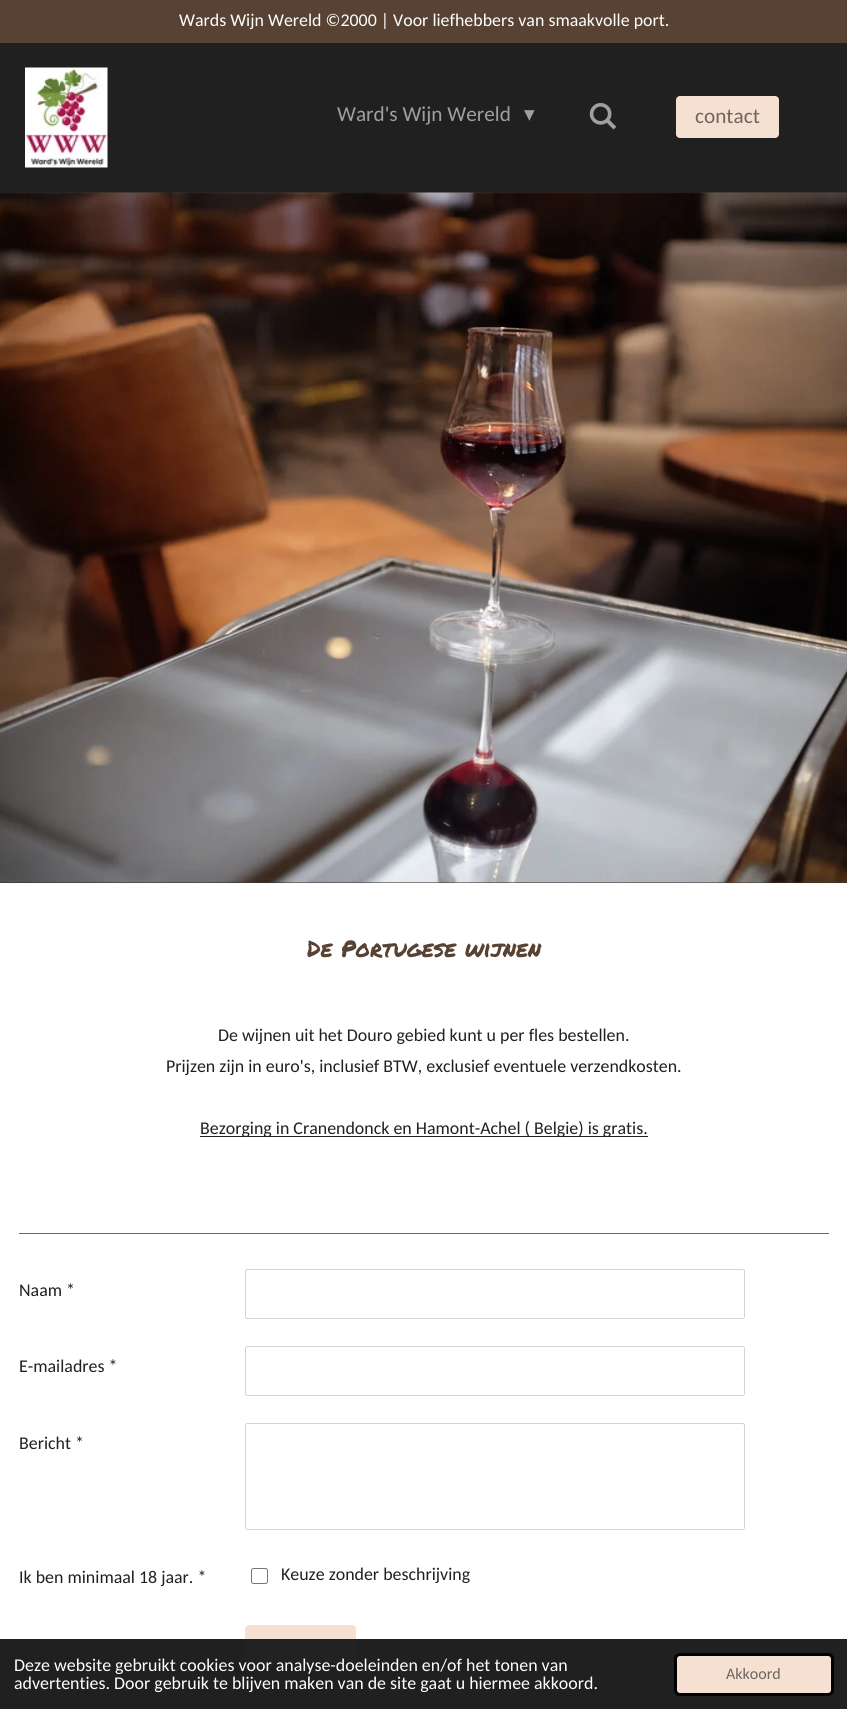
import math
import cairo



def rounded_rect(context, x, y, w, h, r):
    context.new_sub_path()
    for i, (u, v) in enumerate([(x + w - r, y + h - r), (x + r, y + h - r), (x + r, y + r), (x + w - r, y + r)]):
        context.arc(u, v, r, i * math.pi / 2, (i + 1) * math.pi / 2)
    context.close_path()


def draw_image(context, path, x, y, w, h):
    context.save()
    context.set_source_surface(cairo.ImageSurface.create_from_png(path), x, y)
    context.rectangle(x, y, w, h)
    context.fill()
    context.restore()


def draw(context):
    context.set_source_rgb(32 / 255, 32 / 255, 32 / 255)
    context.paint()
    context.set_source_rgb(87 / 255, 66 / 255, 51 / 255)
    context.rectangle(0, 0, 847, 43)
    context.fill()
    draw_image(context, "images/1.png", 25, 67, 83, 101)
    draw_image(context, "images/2.png", 589, 103, 28, 27)
    context.set_source_rgb(246 / 255, 224 / 255, 210 / 255)
    rounded_rect(context, 676, 96, 103, 42, 4)
    context.fill()
    draw_image(context, "images/3.png", 0, 192, 847, 691)
    context.set_source_rgb(1, 1, 1)
    context.rectangle(0, 883, 847, 756)
    context.fill()
    context.set_source_rgb(32 / 255, 32 / 255, 32 / 255)
    context.rectangle(200, 1136, 448, 1)
    context.fill()
    context.set_source_rgb(112 / 255, 108 / 255, 66 / 255)
    context.rectangle(19, 1233, 810, 1)
    context.fill()
    rounded_rect(context, 245.5, 1269.5, 499, 49, 2)
    context.set_source_rgb(211 / 255, 211 / 255, 211 / 255)
    context.set_line_width(1)
    context.stroke()
    rounded_rect(context, 245.5, 1346.5, 499, 49, 2)
    context.stroke()
    rounded_rect(context, 245.5, 1423.5, 499, 106, 2)
    context.stroke()
    rounded_rect(context, 251.5, 1568.5, 16, 15, 2)
    context.set_source_rgb(118 / 255, 118 / 255, 118 / 255)
    context.stroke()
    context.set_source_rgb(246 / 255, 224 / 255, 210 / 255)
    rounded_rect(context, 245, 1625, 111, 38, 4)
    context.fill()
    context.set_source_rgb(34 / 255, 34 / 255, 34 / 255)
    context.rectangle(245, 1639, 111, 24)
    context.fill()
    context.set_source_rgb(246 / 255, 224 / 255, 210 / 255)
    rounded_rect(context, 675.5, 1654.5, 157, 40, 4.5)
    context.fill_preserve()
    context.set_source_rgb(0, 0, 0)
    context.set_line_width(3)
    context.stroke()
    context.select_font_face("Carlito")
    context.set_font_size(17.9)
    context.set_source_rgb(1, 1, 1)
    context.move_to(179, 26)
    context.show_text("Wards Wijn Wereld ©2000 | Voor liefhebbers van smaakvolle port.")
    context.set_font_size(21.25)
    context.set_source_rgb(159 / 255, 159 / 255, 159 / 255)
    context.move_to(337, 121)
    context.show_text("Ward's Wijn Wereld")
    context.select_font_face("DejaVu Sans")
    context.move_to(524, 121)
    context.show_text("▾")
    context.select_font_face("Carlito")
    context.set_source_rgb(111 / 255, 101 / 255, 94 / 255)
    context.move_to(695, 123)
    context.show_text("contact")
    context.select_font_face("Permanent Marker")
    context.set_font_size(22.9)
    context.set_source_rgb(87 / 255, 66 / 255, 51 / 255)
    context.move_to(307, 957)
    context.show_text("De Portugese wijnen")
    context.select_font_face("Carlito")
    context.set_font_size(17.9)
    context.set_source_rgb(32 / 255, 32 / 255, 32 / 255)
    context.move_to(218, 1041)
    context.show_text("De wijnen uit het Douro gebied kunt u per fles bestellen.")
    context.move_to(166, 1072)
    context.show_text("Prijzen zijn in euro's, inclusief BTW, exclusief eventuele verzendkosten.")
    context.move_to(200, 1134)
    context.show_text("Bezorging in Cranendonck en Hamont-Achel ( Belgie) is gratis.")
    context.move_to(19, 1296)
    context.show_text("Naam *")
    context.move_to(19, 1372)
    context.show_text("E-mailadres *")
    context.move_to(19, 1449)
    context.show_text("Bericht *")
    context.move_to(19, 1583)
    context.show_text("Ik ben minimaal 18 jaar. *")
    context.move_to(281, 1580)
    context.show_text("Keuze zonder beschrijving")
    context.set_source_rgb(1, 1, 1)
    context.move_to(14, 1671)
    context.show_text("Deze website gebruikt cookies voor analyse-doeleinden en/of het tonen van")
    context.move_to(14, 1689)
    context.show_text("advertenties. Door gebruik te blijven maken van de site gaat u hiermee akkoord.")
    context.set_font_size(16)
    context.set_source_rgb(111 / 255, 101 / 255, 94 / 255)
    context.move_to(726, 1679)
    context.show_text("Akkoord")


surface = cairo.ImageSurface(cairo.Format.RGB24, 847, 1709)
context = cairo.Context(surface)
options = cairo.FontOptions()
options.set_hint_metrics(cairo.HintMetrics.OFF)
options.set_hint_style(cairo.HintStyle.NONE)
context.set_font_options(options)
context.set_miter_limit(4)
draw(context)
surface.write_to_png("out.png")
